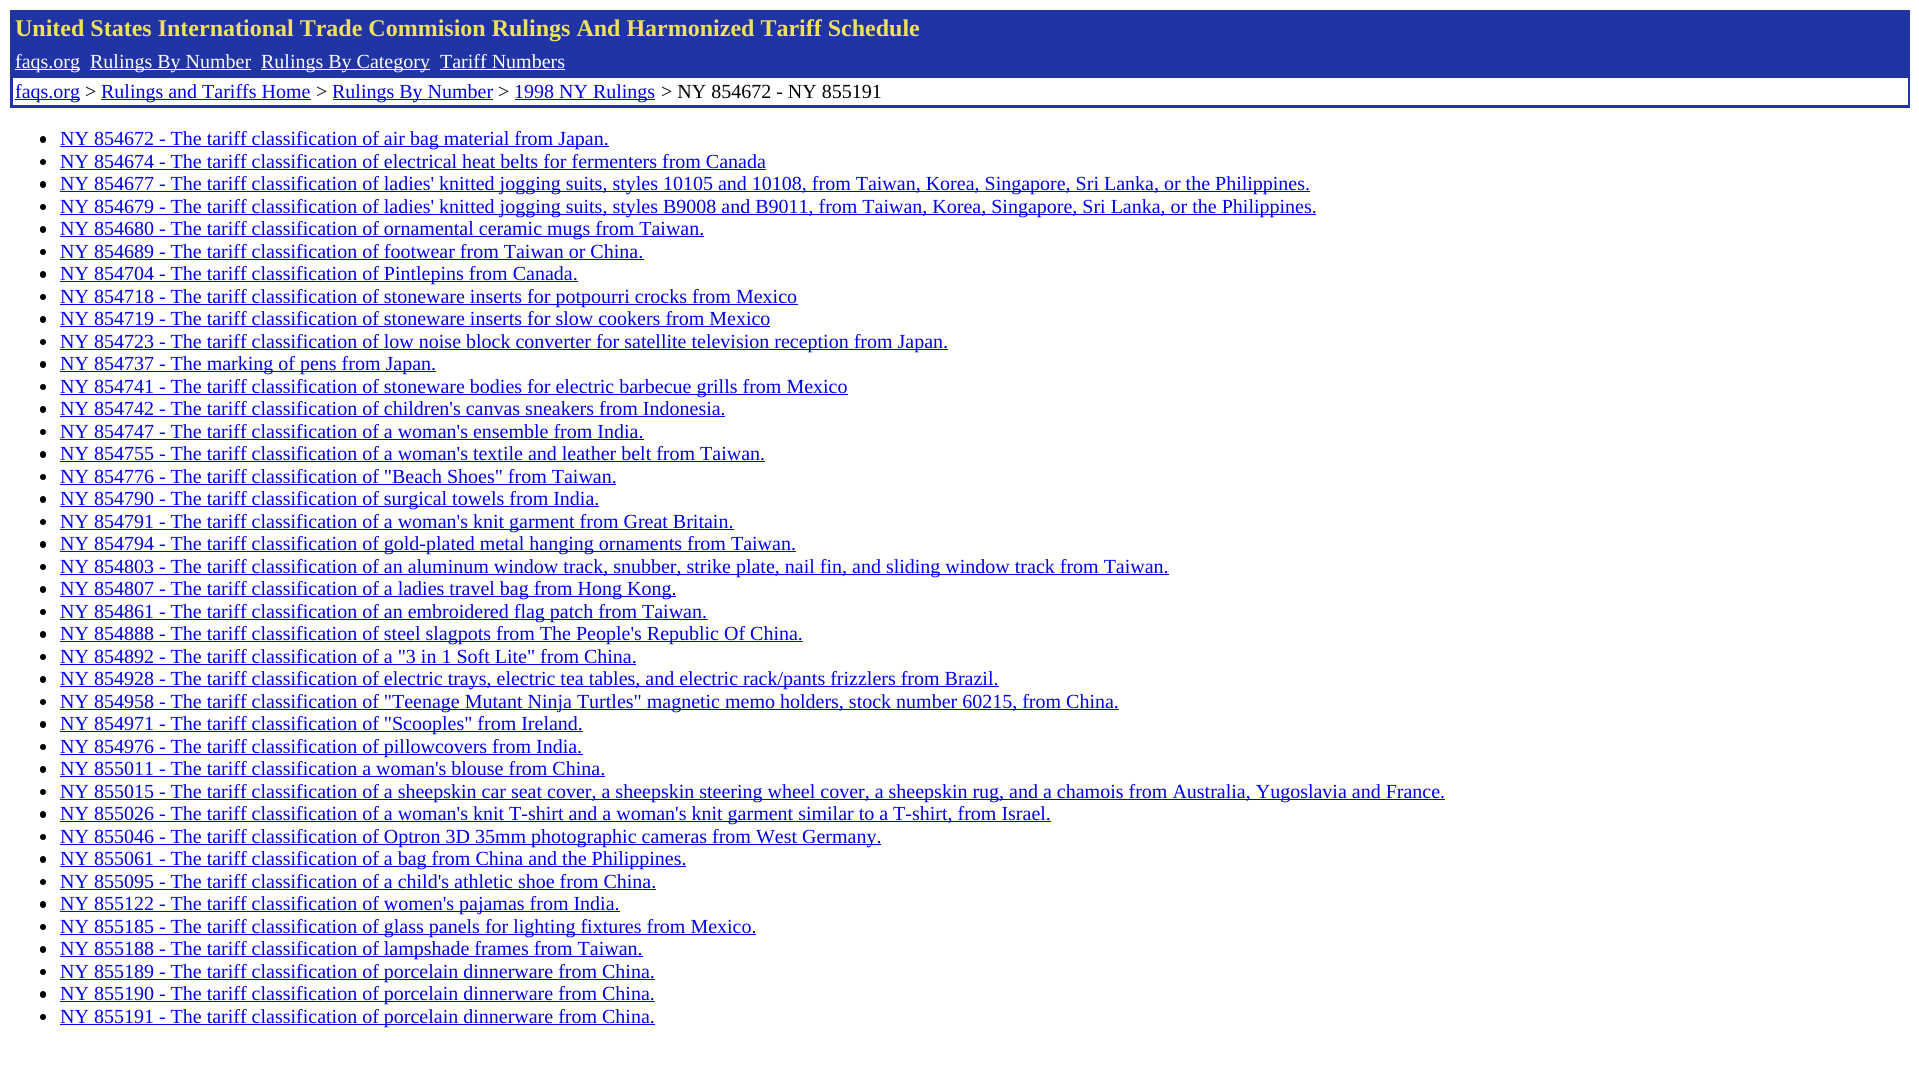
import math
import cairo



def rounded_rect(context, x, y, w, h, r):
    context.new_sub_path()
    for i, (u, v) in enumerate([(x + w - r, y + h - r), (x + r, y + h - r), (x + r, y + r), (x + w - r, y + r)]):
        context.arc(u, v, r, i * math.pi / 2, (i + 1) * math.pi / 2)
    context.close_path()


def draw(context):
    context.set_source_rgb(1, 1, 1)
    context.paint()
    context.set_source_rgb(33 / 255, 52 / 255, 163 / 255)
    context.rectangle(10, 10, 1900, 98)
    context.fill()
    context.set_source_rgb(1, 1, 1)
    context.rectangle(15, 69, 65, 1)
    context.fill()
    context.rectangle(90, 69, 161, 1)
    context.fill()
    context.rectangle(261, 69, 169, 1)
    context.fill()
    context.rectangle(440, 69, 125, 1)
    context.fill()
    context.rectangle(13, 78, 1895, 27)
    context.fill()
    context.set_source_rgb(0, 0, 238 / 255)
    context.rectangle(15, 99, 65, 1)
    context.fill()
    context.rectangle(101, 99, 210, 1)
    context.fill()
    context.rectangle(333, 99, 160, 1)
    context.fill()
    context.rectangle(515, 99, 140, 1)
    context.fill()
    context.set_source_rgb(0, 0, 0)
    rounded_rect(context, 40, 136, 6, 7, 3)
    context.fill()
    context.set_source_rgb(0, 0, 238 / 255)
    context.rectangle(60, 146, 549, 1)
    context.fill()
    context.set_source_rgb(0, 0, 0)
    context.arc(43, 162, 3, 0, 2 * math.pi)
    context.fill()
    context.set_source_rgb(0, 0, 238 / 255)
    context.rectangle(60, 169, 706, 1)
    context.fill()
    context.set_source_rgb(0, 0, 0)
    rounded_rect(context, 40, 181, 6, 7, 3)
    context.fill()
    context.set_source_rgb(0, 0, 238 / 255)
    context.rectangle(60, 191, 1250, 1)
    context.fill()
    context.set_source_rgb(0, 0, 0)
    context.arc(43, 207, 3, 0, 2 * math.pi)
    context.fill()
    context.set_source_rgb(0, 0, 238 / 255)
    context.rectangle(60, 214, 1256, 1)
    context.fill()
    context.set_source_rgb(0, 0, 0)
    rounded_rect(context, 40, 226, 6, 7, 3)
    context.fill()
    context.set_source_rgb(0, 0, 238 / 255)
    context.rectangle(60, 236, 644, 1)
    context.fill()
    context.set_source_rgb(0, 0, 0)
    context.arc(43, 252, 3, 0, 2 * math.pi)
    context.fill()
    context.set_source_rgb(0, 0, 238 / 255)
    context.rectangle(60, 259, 584, 1)
    context.fill()
    context.set_source_rgb(0, 0, 0)
    rounded_rect(context, 40, 271, 6, 7, 3)
    context.fill()
    context.set_source_rgb(0, 0, 238 / 255)
    context.rectangle(60, 281, 518, 1)
    context.fill()
    context.set_source_rgb(0, 0, 0)
    context.arc(43, 297, 3, 0, 2 * math.pi)
    context.fill()
    context.set_source_rgb(0, 0, 238 / 255)
    context.rectangle(60, 304, 738, 1)
    context.fill()
    context.set_source_rgb(0, 0, 0)
    rounded_rect(context, 40, 316, 6, 7, 3)
    context.fill()
    context.set_source_rgb(0, 0, 238 / 255)
    context.rectangle(60, 326, 710, 1)
    context.fill()
    context.set_source_rgb(0, 0, 0)
    context.arc(43, 342, 3, 0, 2 * math.pi)
    context.fill()
    context.set_source_rgb(0, 0, 238 / 255)
    context.rectangle(60, 349, 888, 1)
    context.fill()
    context.set_source_rgb(0, 0, 0)
    rounded_rect(context, 40, 361, 6, 7, 3)
    context.fill()
    context.set_source_rgb(0, 0, 238 / 255)
    context.rectangle(60, 371, 376, 1)
    context.fill()
    context.set_source_rgb(0, 0, 0)
    context.arc(43, 387, 3, 0, 2 * math.pi)
    context.fill()
    context.set_source_rgb(0, 0, 238 / 255)
    context.rectangle(60, 394, 788, 1)
    context.fill()
    context.set_source_rgb(0, 0, 0)
    rounded_rect(context, 40, 406, 6, 7, 3)
    context.fill()
    context.set_source_rgb(0, 0, 238 / 255)
    context.rectangle(60, 416, 665, 1)
    context.fill()
    context.set_source_rgb(0, 0, 0)
    context.arc(43, 432, 3, 0, 2 * math.pi)
    context.fill()
    context.set_source_rgb(0, 0, 238 / 255)
    context.rectangle(60, 439, 584, 1)
    context.fill()
    context.set_source_rgb(0, 0, 0)
    rounded_rect(context, 40, 451, 6, 7, 3)
    context.fill()
    context.set_source_rgb(0, 0, 238 / 255)
    context.rectangle(60, 461, 705, 1)
    context.fill()
    context.set_source_rgb(0, 0, 0)
    context.arc(43, 477, 3, 0, 2 * math.pi)
    context.fill()
    context.set_source_rgb(0, 0, 238 / 255)
    context.rectangle(60, 484, 556, 1)
    context.fill()
    context.set_source_rgb(0, 0, 0)
    rounded_rect(context, 40, 496, 6, 7, 3)
    context.fill()
    context.set_source_rgb(0, 0, 238 / 255)
    context.rectangle(60, 506, 539, 1)
    context.fill()
    context.set_source_rgb(0, 0, 0)
    context.arc(43, 522, 3, 0, 2 * math.pi)
    context.fill()
    context.set_source_rgb(0, 0, 238 / 255)
    context.rectangle(60, 529, 674, 1)
    context.fill()
    context.set_source_rgb(0, 0, 0)
    rounded_rect(context, 40, 541, 6, 7, 3)
    context.fill()
    context.set_source_rgb(0, 0, 238 / 255)
    context.rectangle(60, 551, 736, 1)
    context.fill()
    context.set_source_rgb(0, 0, 0)
    context.arc(43, 567, 3, 0, 2 * math.pi)
    context.fill()
    context.set_source_rgb(0, 0, 238 / 255)
    context.rectangle(60, 574, 1109, 1)
    context.fill()
    context.set_source_rgb(0, 0, 0)
    rounded_rect(context, 40, 586, 6, 7, 3)
    context.fill()
    context.set_source_rgb(0, 0, 238 / 255)
    context.rectangle(60, 596, 616, 1)
    context.fill()
    context.set_source_rgb(0, 0, 0)
    context.arc(43, 612, 3, 0, 2 * math.pi)
    context.fill()
    context.set_source_rgb(0, 0, 238 / 255)
    context.rectangle(60, 619, 648, 1)
    context.fill()
    context.set_source_rgb(0, 0, 0)
    rounded_rect(context, 40, 631, 6, 7, 3)
    context.fill()
    context.set_source_rgb(0, 0, 238 / 255)
    context.rectangle(60, 641, 743, 1)
    context.fill()
    context.set_source_rgb(0, 0, 0)
    context.arc(43, 657, 3, 0, 2 * math.pi)
    context.fill()
    context.set_source_rgb(0, 0, 238 / 255)
    context.rectangle(60, 664, 576, 1)
    context.fill()
    context.set_source_rgb(0, 0, 0)
    rounded_rect(context, 40, 676, 6, 7, 3)
    context.fill()
    context.set_source_rgb(0, 0, 238 / 255)
    context.rectangle(60, 686, 939, 1)
    context.fill()
    context.set_source_rgb(0, 0, 0)
    context.arc(43, 702, 3, 0, 2 * math.pi)
    context.fill()
    context.set_source_rgb(0, 0, 238 / 255)
    context.rectangle(60, 709, 1059, 1)
    context.fill()
    context.set_source_rgb(0, 0, 0)
    rounded_rect(context, 40, 721, 6, 7, 3)
    context.fill()
    context.set_source_rgb(0, 0, 238 / 255)
    context.rectangle(60, 731, 523, 1)
    context.fill()
    context.set_source_rgb(0, 0, 0)
    context.arc(43, 747, 3, 0, 2 * math.pi)
    context.fill()
    context.set_source_rgb(0, 0, 238 / 255)
    context.rectangle(60, 754, 523, 1)
    context.fill()
    context.set_source_rgb(0, 0, 0)
    rounded_rect(context, 40, 766, 6, 7, 3)
    context.fill()
    context.set_source_rgb(0, 0, 238 / 255)
    context.rectangle(60, 776, 545, 1)
    context.fill()
    context.set_source_rgb(0, 0, 0)
    context.arc(43, 792, 3, 0, 2 * math.pi)
    context.fill()
    context.set_source_rgb(0, 0, 238 / 255)
    context.rectangle(60, 799, 1385, 1)
    context.fill()
    context.set_source_rgb(0, 0, 0)
    rounded_rect(context, 40, 811, 6, 7, 3)
    context.fill()
    context.set_source_rgb(0, 0, 238 / 255)
    context.rectangle(60, 821, 991, 1)
    context.fill()
    context.set_source_rgb(0, 0, 0)
    context.arc(43, 837, 3, 0, 2 * math.pi)
    context.fill()
    context.set_source_rgb(0, 0, 238 / 255)
    context.rectangle(60, 844, 821, 1)
    context.fill()
    context.set_source_rgb(0, 0, 0)
    rounded_rect(context, 40, 856, 6, 7, 3)
    context.fill()
    context.set_source_rgb(0, 0, 238 / 255)
    context.rectangle(60, 866, 626, 1)
    context.fill()
    context.set_source_rgb(0, 0, 0)
    context.arc(43, 882, 3, 0, 2 * math.pi)
    context.fill()
    context.set_source_rgb(0, 0, 238 / 255)
    context.rectangle(60, 889, 596, 1)
    context.fill()
    context.set_source_rgb(0, 0, 0)
    rounded_rect(context, 40, 901, 6, 7, 3)
    context.fill()
    context.set_source_rgb(0, 0, 238 / 255)
    context.rectangle(60, 911, 560, 1)
    context.fill()
    context.set_source_rgb(0, 0, 0)
    context.arc(43, 927, 3, 0, 2 * math.pi)
    context.fill()
    context.set_source_rgb(0, 0, 238 / 255)
    context.rectangle(60, 934, 696, 1)
    context.fill()
    context.set_source_rgb(0, 0, 0)
    rounded_rect(context, 40, 946, 6, 7, 3)
    context.fill()
    context.set_source_rgb(0, 0, 238 / 255)
    context.rectangle(60, 956, 583, 1)
    context.fill()
    context.set_source_rgb(0, 0, 0)
    context.arc(43, 972, 3, 0, 2 * math.pi)
    context.fill()
    context.set_source_rgb(0, 0, 238 / 255)
    context.rectangle(60, 979, 595, 1)
    context.fill()
    context.set_source_rgb(0, 0, 0)
    rounded_rect(context, 40, 991, 6, 7, 3)
    context.fill()
    context.set_source_rgb(0, 0, 238 / 255)
    context.rectangle(60, 1001, 595, 1)
    context.fill()
    context.set_source_rgb(0, 0, 0)
    context.arc(43, 1017, 3, 0, 2 * math.pi)
    context.fill()
    context.set_source_rgb(0, 0, 238 / 255)
    context.rectangle(60, 1024, 595, 1)
    context.fill()
    context.select_font_face("Liberation Serif", cairo.FontSlant.NORMAL, cairo.FontWeight.BOLD)
    context.set_font_size(24)
    context.set_source_rgb(239 / 255, 225 / 255, 93 / 255)
    context.move_to(15, 36)
    context.show_text("United States International Trade Commision Rulings And Harmonized Tariff Schedule")
    context.select_font_face("Liberation Serif")
    context.set_font_size(20)
    context.set_source_rgb(1, 1, 1)
    context.move_to(15, 68)
    context.show_text("faqs.org")
    context.move_to(90, 68)
    context.show_text("Rulings By Number")
    context.move_to(261, 68)
    context.show_text("Rulings By Category")
    context.move_to(440, 68)
    context.show_text("Tariff Numbers")
    context.set_source_rgb(0, 0, 238 / 255)
    context.move_to(15, 98)
    context.show_text("faqs.org")
    context.set_source_rgb(0, 0, 0)
    context.move_to(85, 98)
    context.show_text(">")
    context.set_source_rgb(0, 0, 238 / 255)
    context.move_to(101, 98)
    context.show_text("Rulings and Tariffs Home")
    context.set_source_rgb(0, 0, 0)
    context.move_to(316, 98)
    context.show_text(">")
    context.set_source_rgb(0, 0, 238 / 255)
    context.move_to(332, 98)
    context.show_text("Rulings By Number")
    context.set_source_rgb(0, 0, 0)
    context.move_to(498, 98)
    context.show_text(">")
    context.set_source_rgb(0, 0, 238 / 255)
    context.move_to(514, 98)
    context.show_text("1998 NY Rulings")
    context.set_source_rgb(0, 0, 0)
    context.move_to(661, 98)
    context.show_text("> NY 854672 - NY 855191")
    context.set_source_rgb(0, 0, 238 / 255)
    context.move_to(60, 145)
    context.show_text("NY 854672 - The tariff classification of air bag material from Japan.")
    context.move_to(60, 168)
    context.show_text("NY 854674 - The tariff classification of electrical heat belts for fermenters from Canada")
    context.move_to(60, 190)
    context.show_text("NY 854677 - The tariff classification of ladies' knitted jogging suits, styles 10105 and 10108, from Taiwan, Korea, Singapore, Sri Lanka, or the Philippines.")
    context.move_to(60, 213)
    context.show_text("NY 854679 - The tariff classification of ladies' knitted jogging suits, styles B9008 and B9011, from Taiwan, Korea, Singapore, Sri Lanka, or the Philippines.")
    context.move_to(60, 235)
    context.show_text("NY 854680 - The tariff classification of ornamental ceramic mugs from Taiwan.")
    context.move_to(60, 258)
    context.show_text("NY 854689 - The tariff classification of footwear from Taiwan or China.")
    context.move_to(60, 280)
    context.show_text("NY 854704 - The tariff classification of Pintlepins from Canada.")
    context.move_to(60, 303)
    context.show_text("NY 854718 - The tariff classification of stoneware inserts for potpourri crocks from Mexico")
    context.move_to(60, 325)
    context.show_text("NY 854719 - The tariff classification of stoneware inserts for slow cookers from Mexico")
    context.move_to(60, 348)
    context.show_text("NY 854723 - The tariff classification of low noise block converter for satellite television reception from Japan.")
    context.move_to(60, 370)
    context.show_text("NY 854737 - The marking of pens from Japan.")
    context.move_to(60, 393)
    context.show_text("NY 854741 - The tariff classification of stoneware bodies for electric barbecue grills from Mexico")
    context.move_to(60, 415)
    context.show_text("NY 854742 - The tariff classification of children's canvas sneakers from Indonesia.")
    context.move_to(60, 438)
    context.show_text("NY 854747 - The tariff classification of a woman's ensemble from India.")
    context.move_to(60, 460)
    context.show_text("NY 854755 - The tariff classification of a woman's textile and leather belt from Taiwan.")
    context.move_to(60, 483)
    context.show_text("NY 854776 - The tariff classification of \"Beach Shoes\" from Taiwan.")
    context.move_to(60, 505)
    context.show_text("NY 854790 - The tariff classification of surgical towels from India.")
    context.move_to(60, 528)
    context.show_text("NY 854791 - The tariff classification of a woman's knit garment from Great Britain.")
    context.move_to(60, 550)
    context.show_text("NY 854794 - The tariff classification of gold-plated metal hanging ornaments from Taiwan.")
    context.move_to(60, 573)
    context.show_text("NY 854803 - The tariff classification of an aluminum window track, snubber, strike plate, nail fin, and sliding window track from Taiwan.")
    context.move_to(60, 595)
    context.show_text("NY 854807 - The tariff classification of a ladies travel bag from Hong Kong.")
    context.move_to(60, 618)
    context.show_text("NY 854861 - The tariff classification of an embroidered flag patch from Taiwan.")
    context.move_to(60, 640)
    context.show_text("NY 854888 - The tariff classification of steel slagpots from The People's Republic Of China.")
    context.move_to(60, 663)
    context.show_text("NY 854892 - The tariff classification of a \"3 in 1 Soft Lite\" from China.")
    context.move_to(60, 685)
    context.show_text("NY 854928 - The tariff classification of electric trays, electric tea tables, and electric rack/pants frizzlers from Brazil.")
    context.move_to(60, 708)
    context.show_text("NY 854958 - The tariff classification of \"Teenage Mutant Ninja Turtles\" magnetic memo holders, stock number 60215, from China.")
    context.move_to(60, 730)
    context.show_text("NY 854971 - The tariff classification of \"Scooples\" from Ireland.")
    context.move_to(60, 753)
    context.show_text("NY 854976 - The tariff classification of pillowcovers from India.")
    context.move_to(60, 775)
    context.show_text("NY 855011 - The tariff classification a woman's blouse from China.")
    context.move_to(60, 798)
    context.show_text("NY 855015 - The tariff classification of a sheepskin car seat cover, a sheepskin steering wheel cover, a sheepskin rug, and a chamois from Australia, Yugoslavia and France.")
    context.move_to(60, 820)
    context.show_text("NY 855026 - The tariff classification of a woman's knit T-shirt and a woman's knit garment similar to a T-shirt, from Israel.")
    context.move_to(60, 843)
    context.show_text("NY 855046 - The tariff classification of Optron 3D 35mm photographic cameras from West Germany.")
    context.move_to(60, 865)
    context.show_text("NY 855061 - The tariff classification of a bag from China and the Philippines.")
    context.move_to(60, 888)
    context.show_text("NY 855095 - The tariff classification of a child's athletic shoe from China.")
    context.move_to(60, 910)
    context.show_text("NY 855122 - The tariff classification of women's pajamas from India.")
    context.move_to(60, 933)
    context.show_text("NY 855185 - The tariff classification of glass panels for lighting fixtures from Mexico.")
    context.move_to(60, 955)
    context.show_text("NY 855188 - The tariff classification of lampshade frames from Taiwan.")
    context.move_to(60, 978)
    context.show_text("NY 855189 - The tariff classification of porcelain dinnerware from China.")
    context.move_to(60, 1000)
    context.show_text("NY 855190 - The tariff classification of porcelain dinnerware from China.")
    context.move_to(60, 1023)
    context.show_text("NY 855191 - The tariff classification of porcelain dinnerware from China.")


surface = cairo.ImageSurface(cairo.Format.RGB24, 1919, 1066)
context = cairo.Context(surface)
options = cairo.FontOptions()
options.set_hint_metrics(cairo.HintMetrics.OFF)
options.set_hint_style(cairo.HintStyle.NONE)
context.set_font_options(options)
context.set_miter_limit(4)
draw(context)
surface.write_to_png("out.png")
